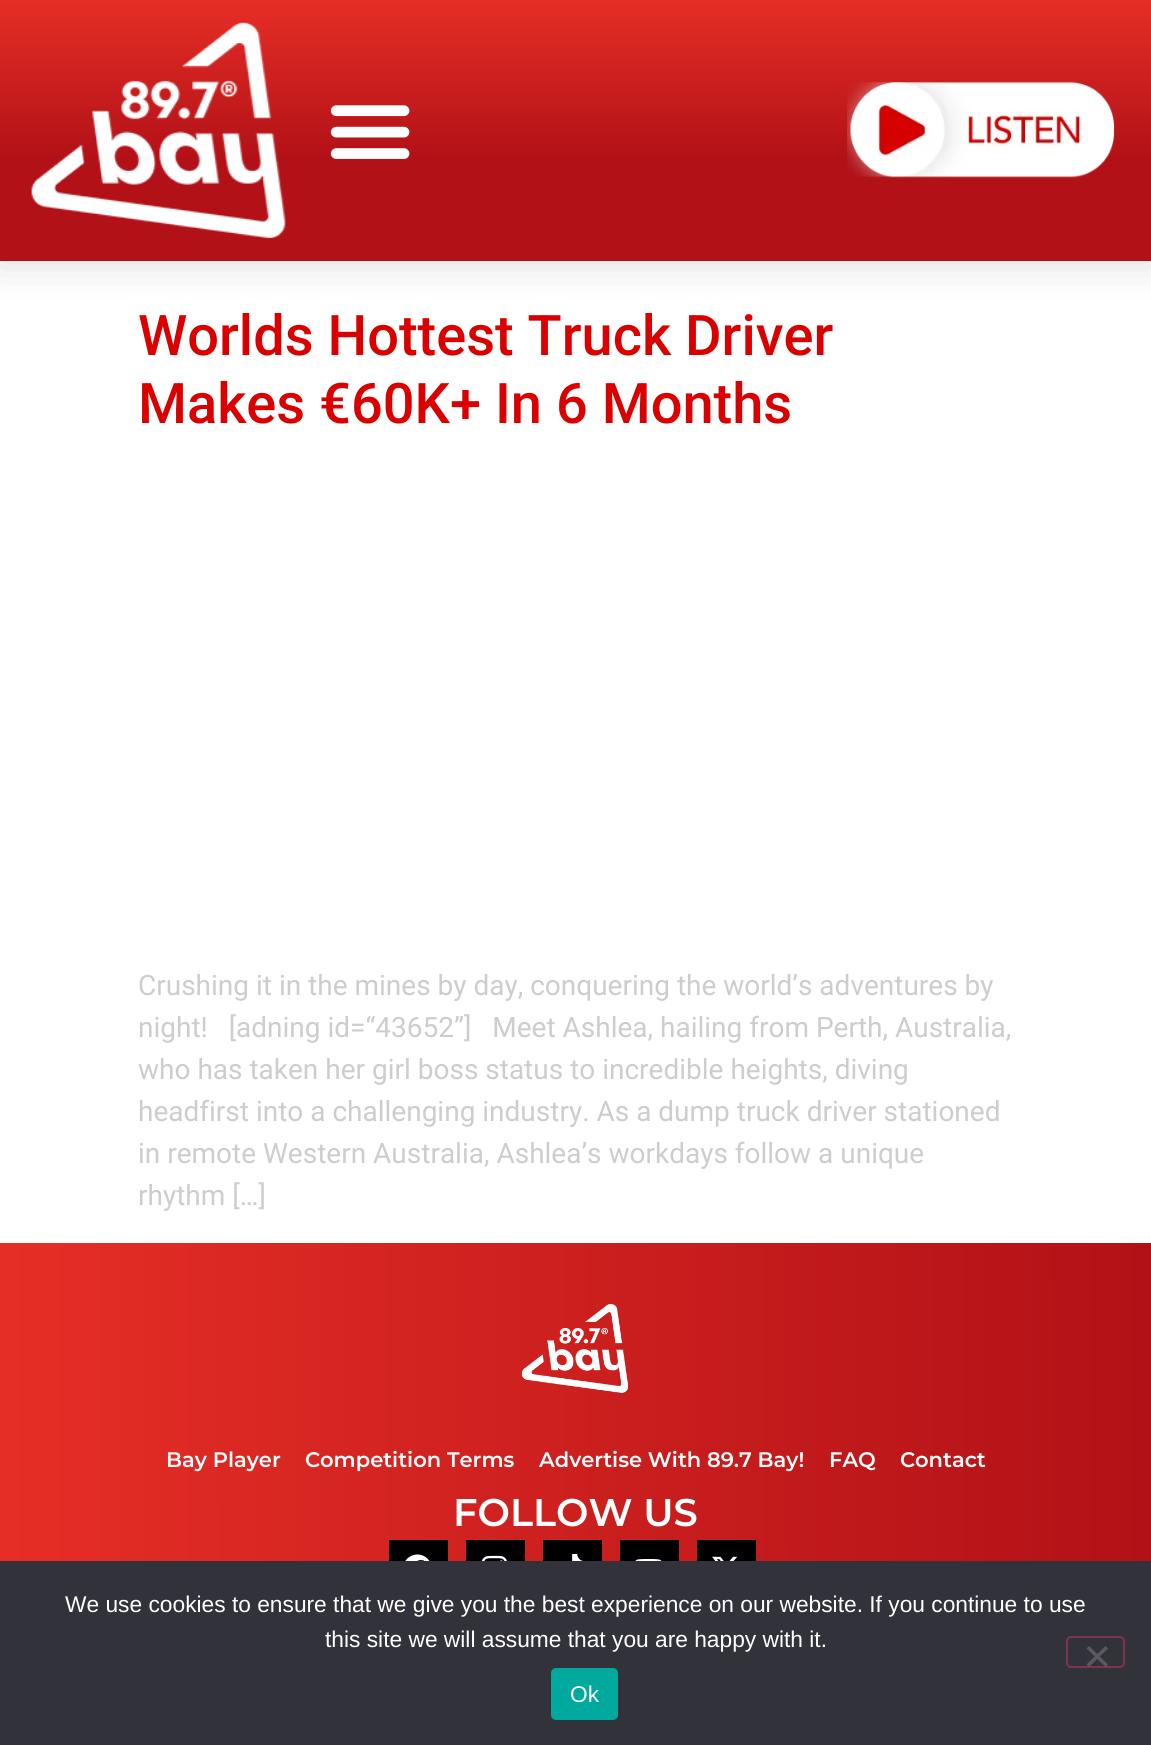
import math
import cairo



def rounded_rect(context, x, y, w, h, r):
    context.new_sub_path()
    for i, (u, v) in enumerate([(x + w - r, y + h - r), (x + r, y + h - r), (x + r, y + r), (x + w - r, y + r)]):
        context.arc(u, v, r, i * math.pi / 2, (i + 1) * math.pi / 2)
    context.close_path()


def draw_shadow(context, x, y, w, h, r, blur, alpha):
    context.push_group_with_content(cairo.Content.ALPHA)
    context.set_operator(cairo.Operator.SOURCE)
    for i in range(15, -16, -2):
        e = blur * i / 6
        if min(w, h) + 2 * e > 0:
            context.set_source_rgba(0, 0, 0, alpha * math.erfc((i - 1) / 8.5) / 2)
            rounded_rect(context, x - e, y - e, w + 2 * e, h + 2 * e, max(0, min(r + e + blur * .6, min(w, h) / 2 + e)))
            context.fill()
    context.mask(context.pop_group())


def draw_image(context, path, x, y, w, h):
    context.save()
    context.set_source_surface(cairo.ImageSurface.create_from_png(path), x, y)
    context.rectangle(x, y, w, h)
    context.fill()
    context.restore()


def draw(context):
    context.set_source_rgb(1, 1, 1)
    context.paint()
    context.set_source_rgb(0, 0, 0)
    draw_shadow(context, 0, 0, 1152, 261, 0, 21, 0.15)
    gradient = cairo.LinearGradient(576, 0, 576, 261)
    gradient.add_color_stop_rgba(0, 230 / 255, 46 / 255, 38 / 255, 1)
    gradient.add_color_stop_rgba(0.61, 178 / 255, 17 / 255, 23 / 255, 1)
    context.set_source(gradient)
    context.rectangle(0, 0, 1151, 261)
    context.fill()
    draw_image(context, "images/1.png", 31, 22, 255, 217)
    draw_image(context, "images/2.png", 330, 105, 80, 54)
    draw_image(context, "images/3.png", 847, 82, 268, 96)
    gradient = cairo.LinearGradient(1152, 1494, 0, 1495)
    gradient.add_color_stop_rgba(0, 178 / 255, 17 / 255, 23 / 255, 1)
    gradient.add_color_stop_rgba(1, 230 / 255, 46 / 255, 38 / 255, 1)
    context.set_source(gradient)
    context.rectangle(0, 1243, 1151, 318)
    context.fill()
    draw_image(context, "images/4.png", 521, 1304, 107, 89)
    context.set_source_rgb(0, 0, 0)
    context.rectangle(389, 1540, 59, 21)
    context.fill()
    draw_image(context, "images/5.png", 405, 1554, 25, 7)
    context.rectangle(466, 1540, 59, 21)
    context.fill()
    draw_image(context, "images/6.png", 481, 1555, 26, 6)
    context.rectangle(543, 1540, 59, 21)
    context.fill()
    draw_image(context, "images/7.png", 572, 1554, 11, 7)
    context.rectangle(620, 1540, 59, 21)
    context.fill()
    draw_image(context, "images/8.png", 635, 1558, 27, 3)
    context.rectangle(697, 1540, 59, 21)
    context.fill()
    draw_image(context, "images/9.png", 712, 1556, 26, 5)
    context.set_source_rgb(50 / 255, 50 / 255, 58 / 255)
    context.rectangle(0, 1561, 1151, 184)
    context.fill()
    rounded_rect(context, 1067, 1637, 57, 30, 4)
    context.set_source_rgb(127 / 255, 51 / 255, 80 / 255)
    context.stroke()
    context.set_source_rgb(89 / 255, 89 / 255, 93 / 255)
    context.new_path()
    context.move_to(1105.5, 1646)
    context.line_to(1108, 1648.5)
    context.line_to(1089, 1667)
    context.line_to(1086.5, 1664.5)
    context.close_path()
    context.fill()
    context.new_path()
    context.move_to(1086.5, 1648.5)
    context.line_to(1089, 1646)
    context.line_to(1108, 1664.5)
    context.line_to(1105.5, 1667)
    context.close_path()
    context.fill()
    context.set_source_rgb(0, 169 / 255, 157 / 255)
    rounded_rect(context, 551, 1668, 67, 52, 5)
    context.fill()
    context.select_font_face("Roboto Medium")
    context.set_font_size(56)
    context.set_source_rgb(219 / 255, 0, 0)
    context.move_to(138, 355)
    context.show_text("Worlds Hottest Truck Driver")
    context.move_to(138, 423)
    context.show_text("Makes €60K+ In 6 Months")
    context.select_font_face("Roboto")
    context.set_font_size(28)
    context.set_source_rgb(205 / 255, 205 / 255, 205 / 255)
    context.move_to(138, 995)
    context.show_text("Crushing it in the mines by day, conquering the world’s adventures by")
    context.move_to(138, 1037)
    context.show_text("night!   [adning id=“43652”]   Meet Ashlea, hailing from Perth, Australia,")
    context.move_to(138, 1079)
    context.show_text("who has taken her girl boss status to incredible heights, diving")
    context.move_to(138, 1121)
    context.show_text("headfirst into a challenging industry. As a dump truck driver stationed")
    context.move_to(138, 1163)
    context.show_text("in remote Western Australia, Ashlea’s workdays follow a unique")
    context.move_to(138, 1205)
    context.show_text("rhythm […]")
    context.select_font_face("Montserrat SemiBold")
    context.set_font_size(21)
    context.set_source_rgb(1, 1, 1)
    context.move_to(166, 1467)
    context.show_text("Bay Player")
    context.move_to(305, 1467)
    context.show_text("Competition Terms")
    context.move_to(539, 1467)
    context.show_text("Advertise With 89.7 Bay!")
    context.move_to(829, 1467)
    context.show_text("FAQ")
    context.move_to(900, 1467)
    context.show_text("Contact")
    context.set_font_size(38.5)
    context.move_to(453, 1526)
    context.show_text("FOLLOW US")
    context.select_font_face("Liberation Sans")
    context.set_font_size(22.75)
    context.move_to(65, 1612)
    context.show_text("We use cookies to ensure that we give you the best experience on our website. If you continue to use")
    context.move_to(325, 1647)
    context.show_text("this site we will assume that you are happy with it.")
    context.move_to(570, 1702)
    context.show_text("Ok")


surface = cairo.ImageSurface(cairo.Format.RGB24, 1151, 1745)
context = cairo.Context(surface)
options = cairo.FontOptions()
options.set_hint_metrics(cairo.HintMetrics.OFF)
options.set_hint_style(cairo.HintStyle.NONE)
context.set_font_options(options)
context.set_miter_limit(4)
draw(context)
surface.write_to_png("out.png")
